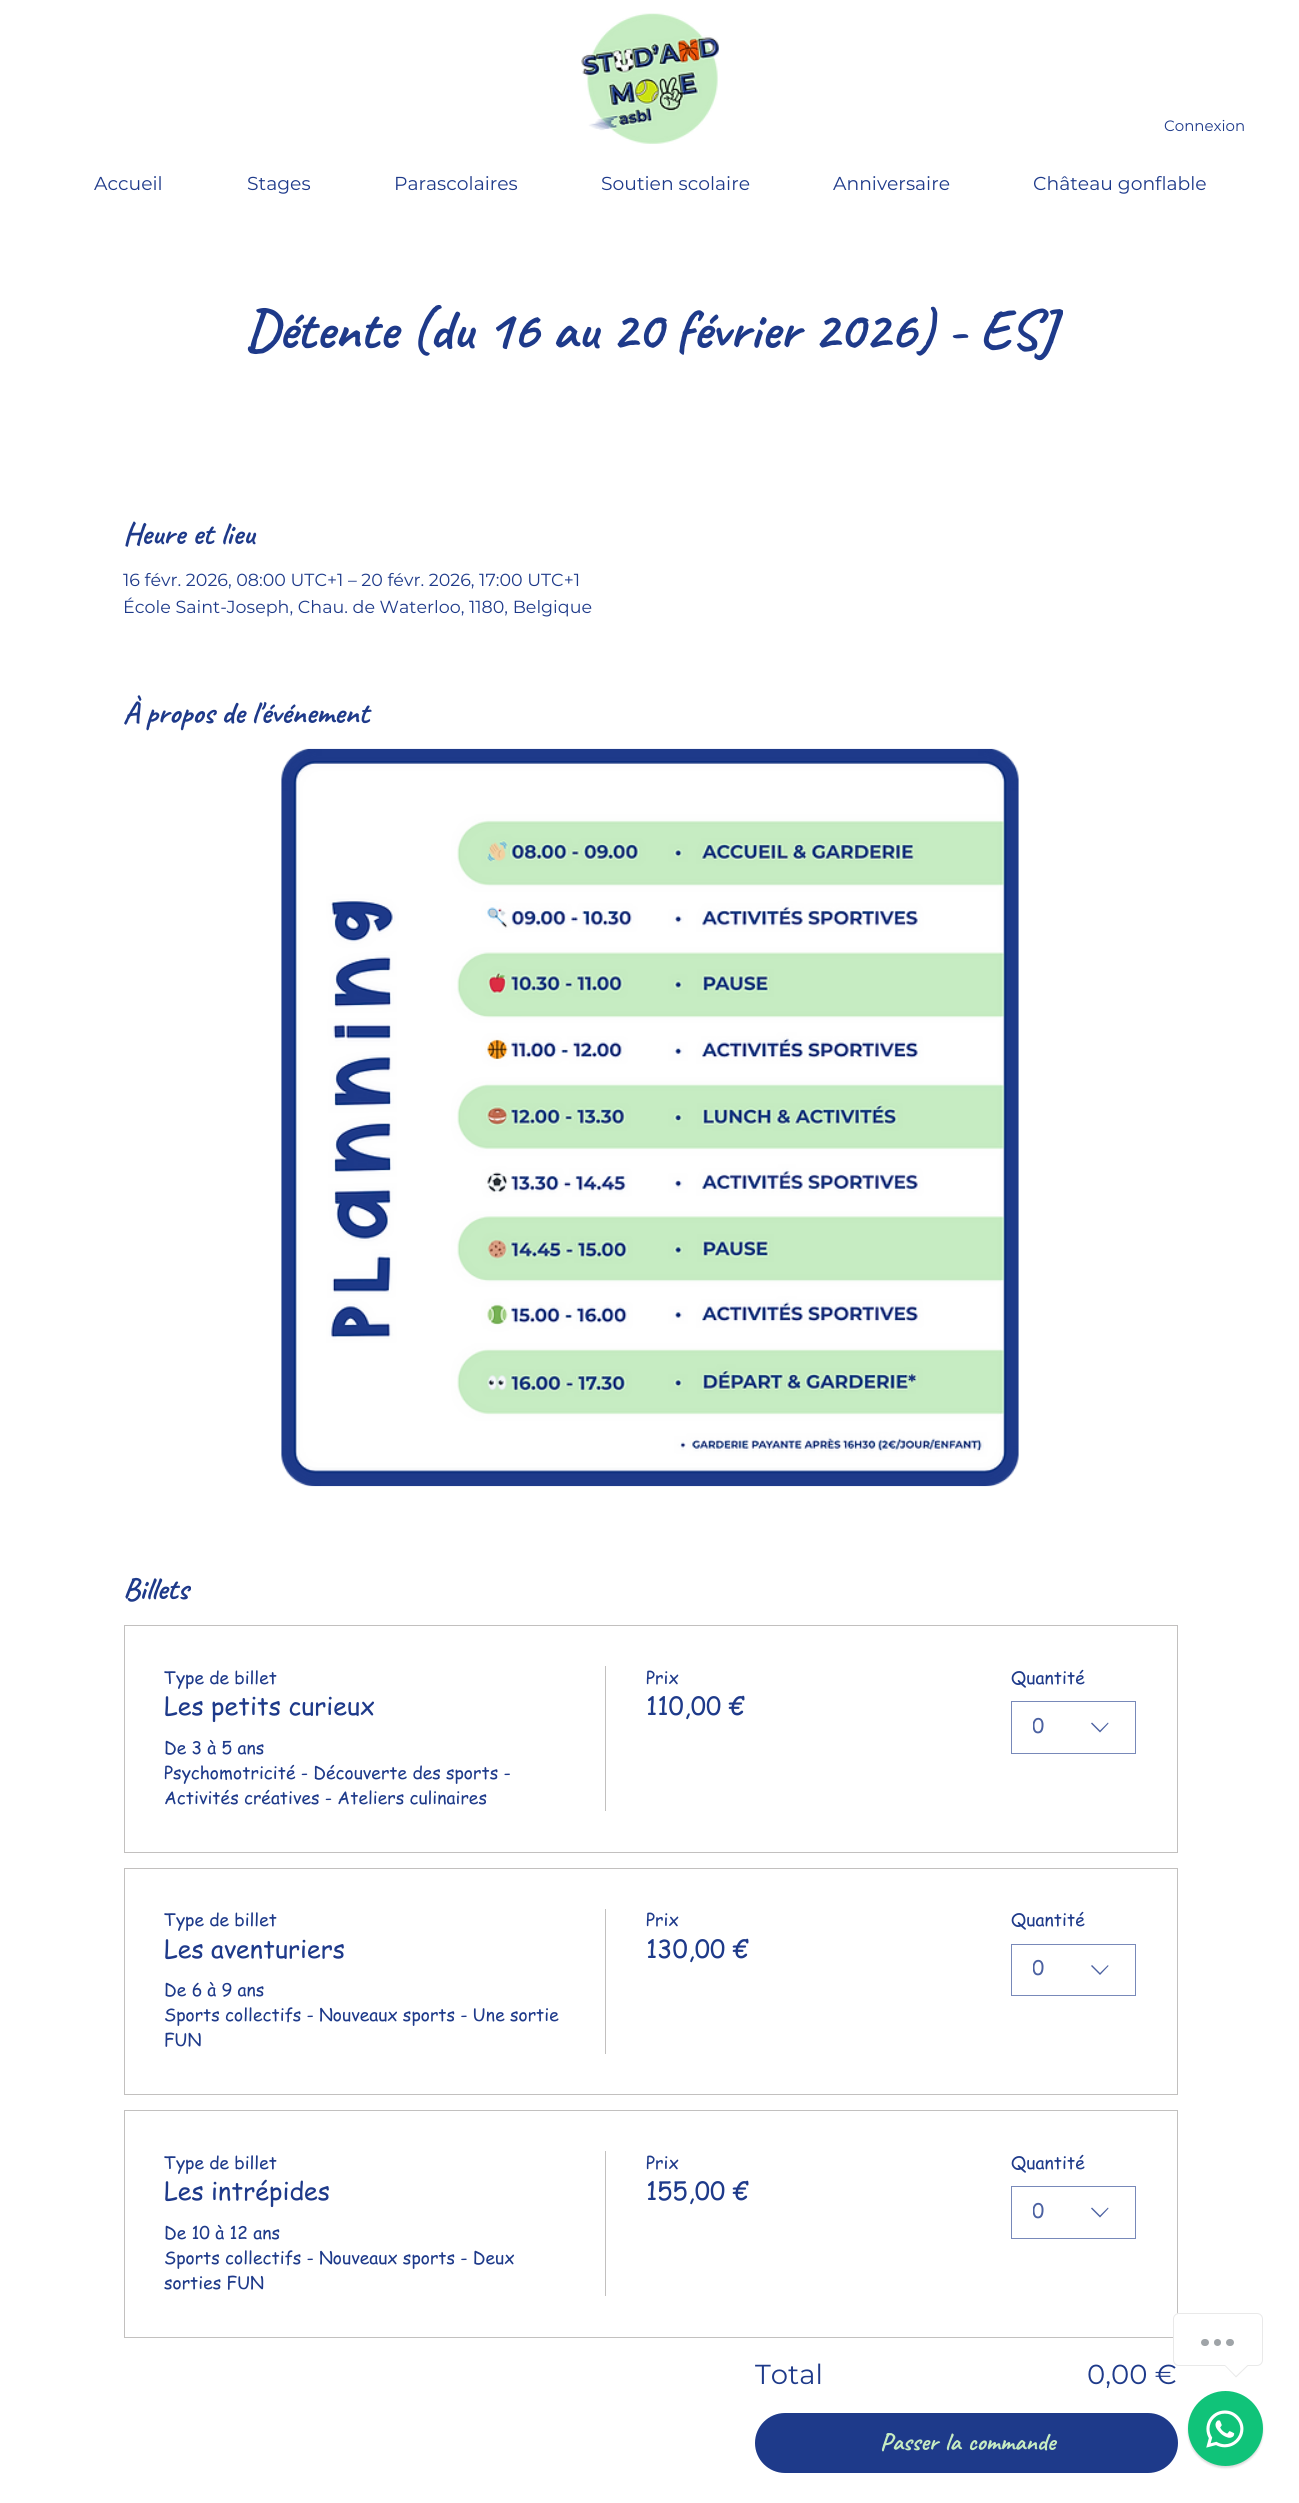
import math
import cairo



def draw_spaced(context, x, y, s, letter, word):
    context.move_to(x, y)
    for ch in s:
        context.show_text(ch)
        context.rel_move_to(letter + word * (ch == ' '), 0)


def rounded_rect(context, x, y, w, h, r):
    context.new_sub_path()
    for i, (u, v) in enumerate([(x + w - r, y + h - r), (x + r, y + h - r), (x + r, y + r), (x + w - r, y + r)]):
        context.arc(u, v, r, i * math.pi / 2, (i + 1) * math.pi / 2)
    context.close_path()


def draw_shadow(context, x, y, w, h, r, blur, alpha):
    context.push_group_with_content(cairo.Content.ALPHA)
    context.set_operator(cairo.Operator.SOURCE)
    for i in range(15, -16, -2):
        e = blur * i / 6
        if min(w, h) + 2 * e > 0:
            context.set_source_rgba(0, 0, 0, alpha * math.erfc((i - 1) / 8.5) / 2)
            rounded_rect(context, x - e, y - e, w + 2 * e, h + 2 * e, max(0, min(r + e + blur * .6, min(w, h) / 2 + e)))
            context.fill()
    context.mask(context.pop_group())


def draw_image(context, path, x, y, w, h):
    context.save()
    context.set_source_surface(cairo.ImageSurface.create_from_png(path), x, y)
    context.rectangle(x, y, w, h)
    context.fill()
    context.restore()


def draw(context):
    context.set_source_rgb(1, 1, 1)
    context.paint()
    draw_image(context, "images/1.png", 581, 13, 138, 131)
    draw_image(context, "images/2.png", 281, 748, 738, 739)
    context.rectangle(124.5, 1625.5, 1053, 227)
    context.set_source_rgb(194 / 255, 192 / 255, 191 / 255)
    context.set_line_width(1)
    context.stroke()
    context.rectangle(605, 1666, 1, 145)
    context.fill()
    context.rectangle(1011.5, 1701.5, 124, 52)
    context.set_source_rgb(120 / 255, 137 / 255, 185 / 255)
    context.stroke()
    context.set_source_rgb(75 / 255, 97 / 255, 161 / 255)
    context.set_fill_rule(cairo.FillRule.EVEN_ODD)
    context.new_path()
    context.move_to(1108, 1722.5)
    context.line_to(1108.5, 1723.5)
    context.line_to(1100, 1732.5)
    context.line_to(1091, 1723.5)
    context.line_to(1092, 1722.5)
    context.line_to(1100, 1730.5)
    context.close_path()
    context.fill()
    context.rectangle(124.5, 1868.5, 1053, 226)
    context.set_source_rgb(194 / 255, 192 / 255, 191 / 255)
    context.stroke()
    context.rectangle(605, 1909, 1, 145)
    context.fill()
    context.rectangle(1011.5, 1944.5, 124, 51)
    context.set_source_rgb(120 / 255, 137 / 255, 185 / 255)
    context.stroke()
    context.set_source_rgb(75 / 255, 97 / 255, 161 / 255)
    context.new_path()
    context.move_to(1108, 1965)
    context.line_to(1108.5, 1966)
    context.line_to(1100, 1975)
    context.line_to(1091, 1966)
    context.line_to(1092, 1965)
    context.line_to(1100, 1973)
    context.close_path()
    context.fill()
    context.rectangle(124.5, 2110.5, 1053, 227)
    context.set_source_rgb(194 / 255, 192 / 255, 191 / 255)
    context.stroke()
    context.rectangle(605, 2151, 1, 145)
    context.fill()
    context.rectangle(1011.5, 2186.5, 124, 52)
    context.set_source_rgb(120 / 255, 137 / 255, 185 / 255)
    context.stroke()
    context.set_source_rgb(75 / 255, 97 / 255, 161 / 255)
    context.new_path()
    context.move_to(1108, 2207.5)
    context.line_to(1108.5, 2208.5)
    context.line_to(1100, 2217.5)
    context.line_to(1091, 2208.5)
    context.line_to(1092, 2207.5)
    context.line_to(1100, 2215.5)
    context.close_path()
    context.fill()
    context.set_source_rgb(30 / 255, 58 / 255, 138 / 255)
    rounded_rect(context, 755, 2413, 423, 60, 30)
    context.fill()
    context.set_source_rgb(0, 0, 0)
    draw_shadow(context, 1188, 2393, 75, 75, 37.5, 1, 0.15)
    context.set_source_rgb(16 / 255, 195 / 255, 121 / 255)
    context.arc(1225.5, 2428.5, 37.5, 0, 2 * math.pi)
    context.fill()
    draw_image(context, "images/3.png", 1206, 2410, 38, 38)
    context.select_font_face("Montserrat")
    context.set_font_size(15)
    context.set_source_rgb(30 / 255, 58 / 255, 138 / 255)
    context.move_to(1164, 131)
    context.show_text("Connexion")
    context.set_font_size(18.75)
    context.move_to(94, 190)
    context.show_text("Accueil")
    context.move_to(247, 190)
    context.show_text("Stages")
    context.move_to(394, 190)
    context.show_text("Parascolaires")
    context.move_to(601, 190)
    context.show_text("Soutien scolaire")
    context.move_to(833, 190)
    context.show_text("Anniversaire")
    context.move_to(1033, 190)
    context.show_text("Château gonflable")
    context.select_font_face("Caveat", cairo.FontSlant.NORMAL, cairo.FontWeight.BOLD)
    context.set_font_size(56.25)
    context.move_to(245, 348)
    context.show_text("Détente (du 16 au 20 février 2026) - ESJ")
    context.set_font_size(31.25)
    context.move_to(123, 544)
    context.show_text("Heure et lieu")
    context.select_font_face("Montserrat")
    context.set_font_size(17.5)
    context.move_to(123, 586)
    context.show_text("16 févr. 2026, 08:00 UTC+1 – 20 févr. 2026, 17:00 UTC+1")
    context.move_to(123, 613)
    context.show_text("École Saint-Joseph, Chau. de Waterloo, 1180, Belgique")
    context.select_font_face("Caveat", cairo.FontSlant.NORMAL, cairo.FontWeight.BOLD)
    context.set_font_size(31.25)
    draw_spaced(context, 123, 723, "À propos de l'événement", 0, -0.5)
    context.move_to(123, 1599)
    context.show_text("Billets")
    context.select_font_face("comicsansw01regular")
    context.set_font_size(17.5)
    context.move_to(164, 1684)
    context.show_text("Type de billet")
    context.set_font_size(25)
    context.move_to(164, 1715)
    context.show_text("Les petits curieux")
    context.set_font_size(17.5)
    context.move_to(164, 1754)
    context.show_text("De 3 à 5 ans")
    context.move_to(164, 1779)
    context.show_text("Psychomotricité - Découverte des sports -")
    context.move_to(164, 1804)
    context.show_text("Activités créatives - Ateliers culinaires")
    context.move_to(646, 1684)
    context.show_text("Prix")
    context.set_font_size(25)
    context.move_to(646, 1715)
    context.show_text("110,00 €")
    context.set_font_size(17.5)
    context.move_to(1011, 1684)
    context.show_text("Quantité")
    context.save()
    context.set_fill_rule(cairo.FillRule.WINDING)
    context.rectangle(1033, 1713, 47, 30)
    context.clip()
    context.set_font_size(20)
    context.set_source_rgb(75 / 255, 97 / 255, 161 / 255)
    context.move_to(1032, 1733)
    context.show_text("0")
    context.restore()
    context.move_to(164, 1926)
    context.show_text("Type de billet")
    context.set_font_size(25)
    context.move_to(164, 1958)
    context.show_text("Les aventuriers")
    context.set_font_size(17.5)
    context.move_to(164, 1996)
    context.show_text("De 6 à 9 ans")
    context.move_to(164, 2021)
    context.show_text("Sports collectifs - Nouveaux sports - Une sortie")
    context.move_to(164, 2046)
    context.show_text("FUN")
    context.move_to(646, 1926)
    context.show_text("Prix")
    context.set_font_size(25)
    context.move_to(646, 1958)
    context.show_text("130,00 €")
    context.set_font_size(17.5)
    context.move_to(1011, 1926)
    context.show_text("Quantité")
    context.save()
    context.set_fill_rule(cairo.FillRule.WINDING)
    context.rectangle(1033, 1955, 47, 30)
    context.clip()
    context.set_font_size(20)
    context.set_source_rgb(75 / 255, 97 / 255, 161 / 255)
    context.move_to(1032, 1975)
    context.show_text("0")
    context.restore()
    context.move_to(164, 2169)
    context.show_text("Type de billet")
    context.set_font_size(25)
    context.move_to(164, 2200)
    context.show_text("Les intrépides")
    context.set_font_size(17.5)
    context.move_to(164, 2239)
    context.show_text("De 10 à 12 ans")
    context.move_to(164, 2264)
    context.show_text("Sports collectifs - Nouveaux sports - Deux")
    context.move_to(164, 2289)
    context.show_text("sorties FUN")
    context.move_to(646, 2169)
    context.show_text("Prix")
    context.set_font_size(25)
    context.move_to(646, 2200)
    context.show_text("155,00 €")
    context.set_font_size(17.5)
    context.move_to(1011, 2169)
    context.show_text("Quantité")
    context.save()
    context.set_fill_rule(cairo.FillRule.WINDING)
    context.rectangle(1033, 2198, 47, 30)
    context.clip()
    context.set_font_size(20)
    context.set_source_rgb(75 / 255, 97 / 255, 161 / 255)
    context.move_to(1032, 2218)
    context.show_text("0")
    context.restore()
    context.select_font_face("Montserrat")
    context.set_font_size(27.5)
    context.move_to(755, 2384)
    context.show_text("Total")
    context.move_to(1087, 2384)
    context.show_text("0,00 €")
    context.select_font_face("Caveat", cairo.FontSlant.NORMAL, cairo.FontWeight.BOLD)
    context.set_font_size(25)
    context.set_source_rgb(198 / 255, 236 / 255, 194 / 255)
    draw_spaced(context, 880, 2450, "Passer la commande", 0, 1)
    context.set_source_rgb(1, 1, 1)
    rounded_rect(context, 1173.5, 2313.5, 89, 52, 5.5)
    context.fill_preserve()
    context.set_source_rgb(233 / 255, 233 / 255, 233 / 255)
    context.stroke()
    context.set_source_rgb(159 / 255, 164 / 255, 168 / 255)
    rounded_rect(context, 1201, 2339, 8, 7, 3.5)
    context.fill()
    context.arc(1217.5, 2342.5, 3.5, 0, 2 * math.pi)
    context.fill()
    rounded_rect(context, 1226, 2339, 8, 7, 3.5)
    context.fill()
    context.set_source_rgb(233 / 255, 233 / 255, 233 / 255)
    context.set_fill_rule(cairo.FillRule.WINDING)
    context.new_path()
    context.move_to(1224, 2365)
    context.line_to(1249, 2365)
    context.line_to(1236, 2377.5)
    context.close_path()
    context.fill()
    context.set_source_rgb(1, 1, 1)
    context.new_path()
    context.move_to(1225, 2365)
    context.line_to(1247.5, 2365)
    context.line_to(1236, 2376)
    context.close_path()
    context.fill()


surface = cairo.ImageSurface(cairo.Format.RGB24, 1299, 2503)
context = cairo.Context(surface)
options = cairo.FontOptions()
options.set_hint_metrics(cairo.HintMetrics.OFF)
options.set_hint_style(cairo.HintStyle.NONE)
context.set_font_options(options)
context.set_miter_limit(4)
draw(context)
surface.write_to_png("out.png")
